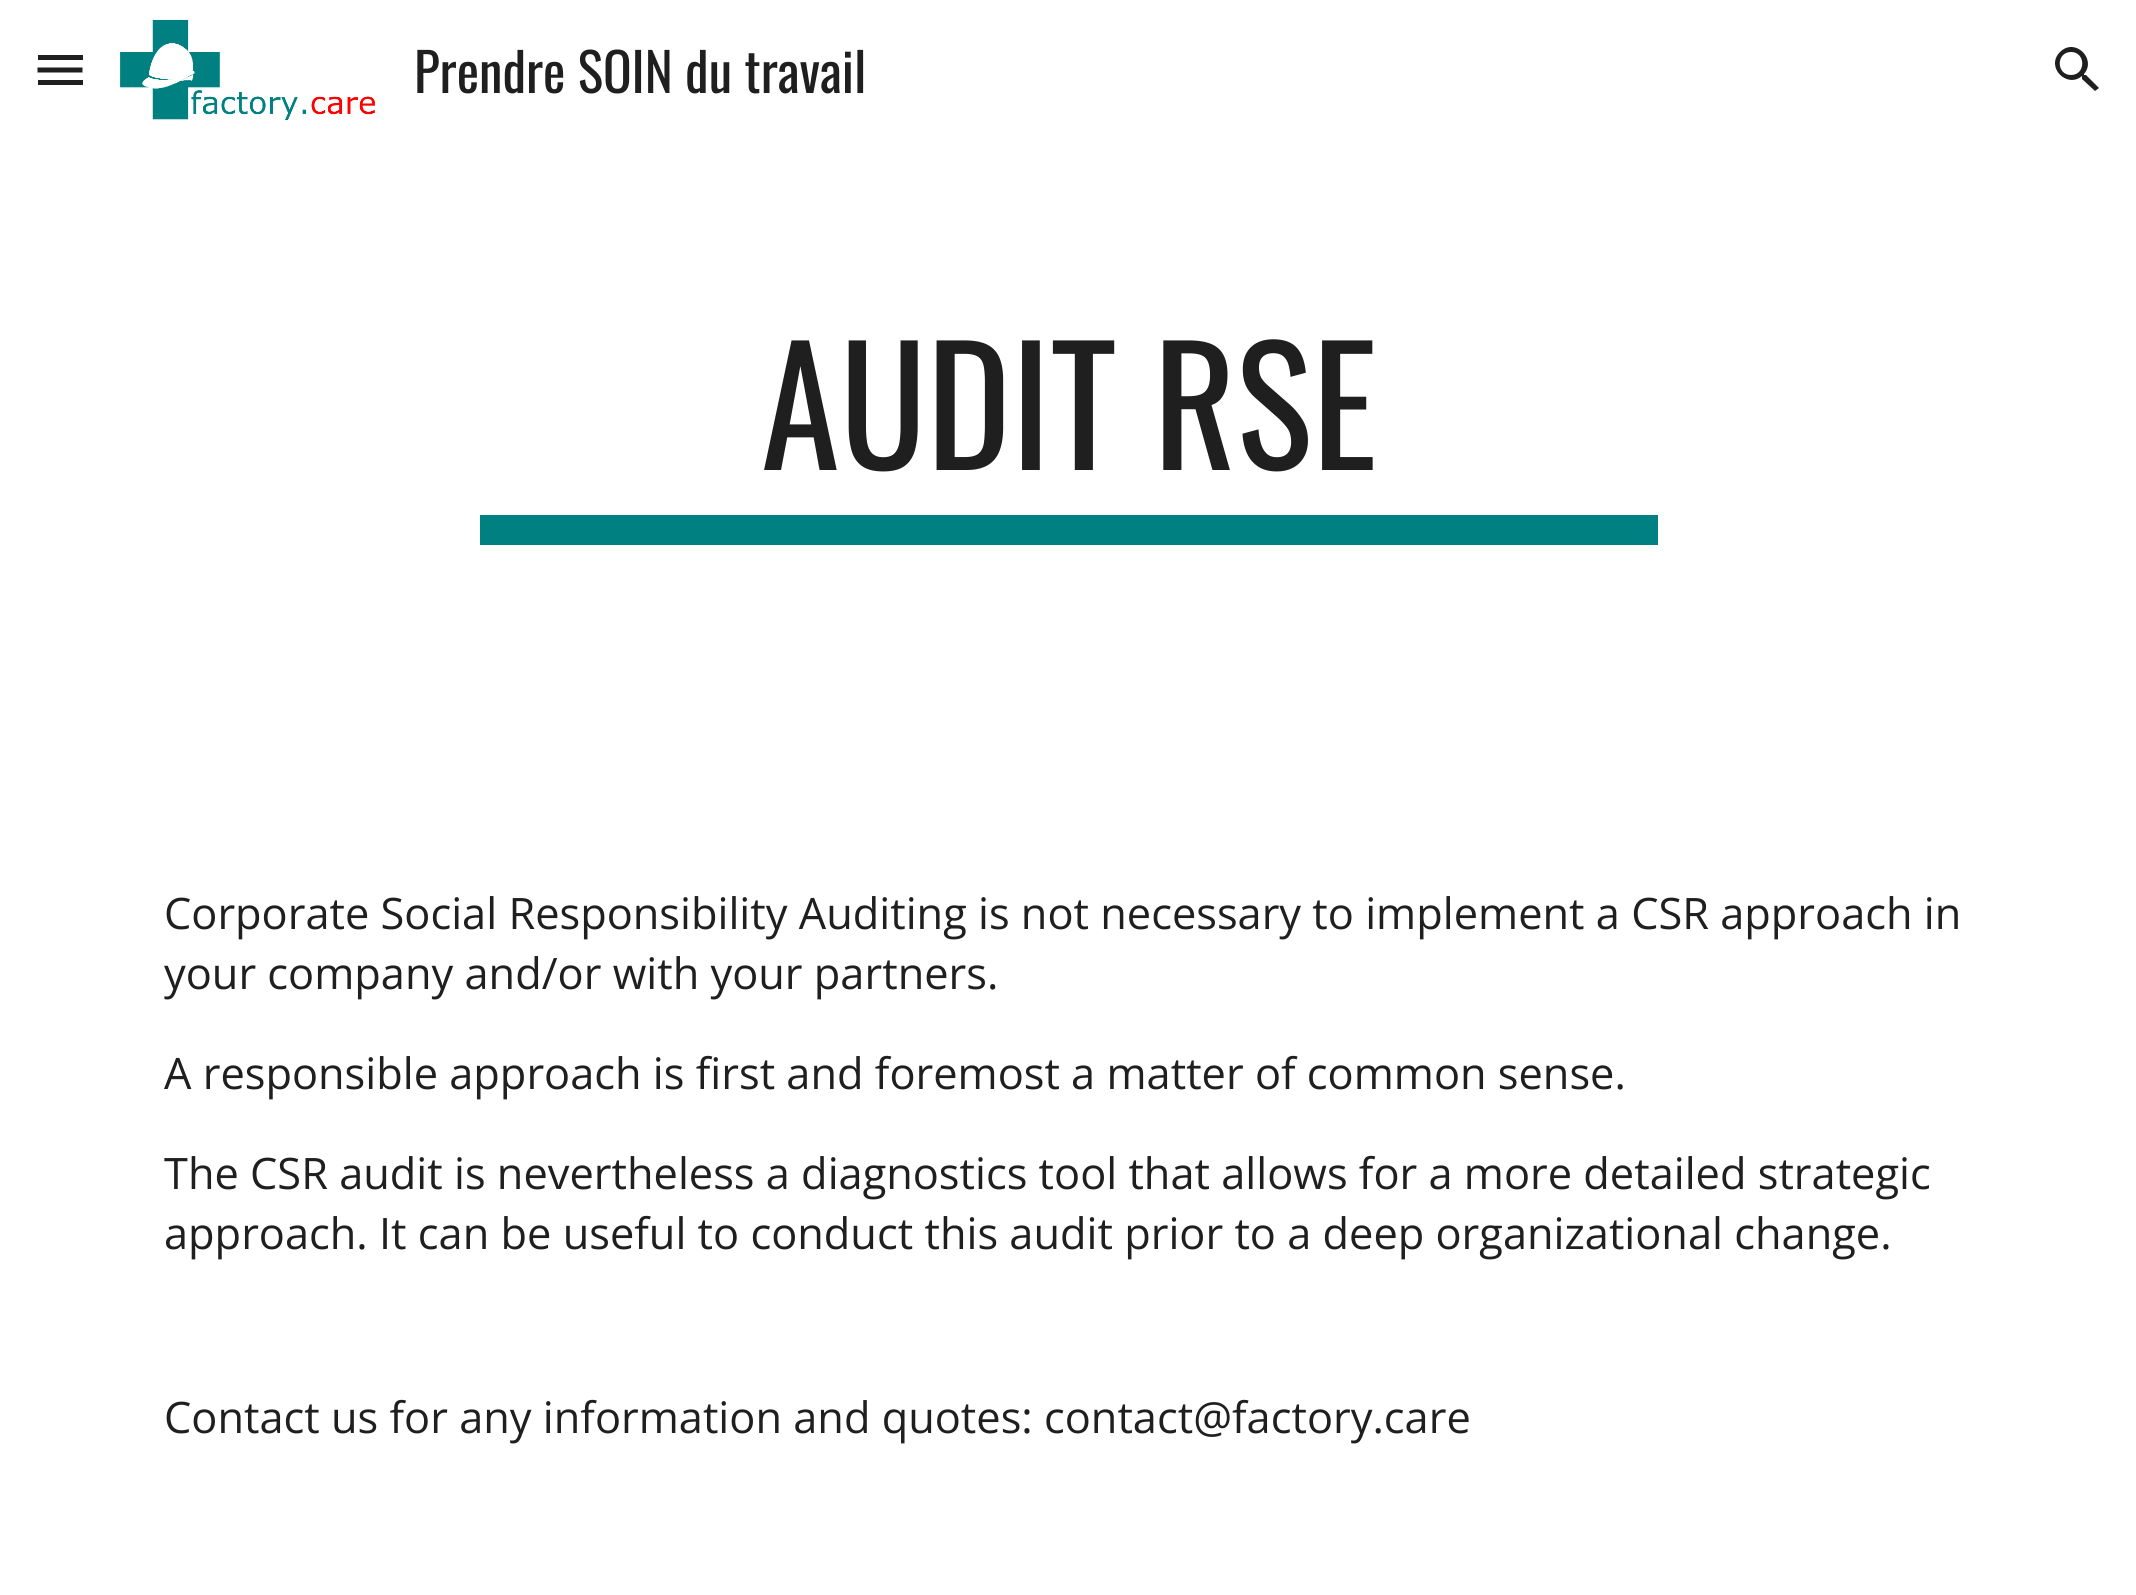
import math
import cairo



def draw_image(context, path, x, y, w, h):
    context.save()
    context.set_source_surface(cairo.ImageSurface.create_from_png(path), x, y)
    context.rectangle(x, y, w, h)
    context.fill()
    context.restore()


def draw(context):
    context.set_source_rgb(1, 1, 1)
    context.paint()
    context.set_source_rgb(31 / 255, 31 / 255, 31 / 255)
    context.rectangle(38, 55, 45, 5)
    context.fill()
    context.new_path()
    context.move_to(37.5, 70)
    context.line_to(82.5, 70)
    context.set_line_width(5)
    context.stroke()
    context.rectangle(38, 80, 45, 5)
    context.fill()
    draw_image(context, "images/1.png", 120, 19, 255, 102)
    context.new_path()
    context.move_to(2086, 75)
    context.line_to(2084, 75)
    context.line_to(2084, 74)
    context.curve_to(2097, 59, 2075, 37, 2060, 52)
    context.curve_to(2045, 67, 2067, 89, 2082, 76)
    context.line_to(2082, 77)
    context.line_to(2082, 79)
    context.line_to(2095, 91)
    context.line_to(2099, 88)
    context.close_path()
    context.move_to(2071, 75)
    context.curve_to(2056, 75, 2056, 52, 2071, 52)
    context.curve_to(2086, 52, 2086, 75, 2071, 75)
    context.close_path()
    context.fill()
    context.set_source_rgb(0, 128 / 255, 128 / 255)
    context.rectangle(480, 515, 1178, 30)
    context.fill()
    context.select_font_face("Oswald")
    context.set_font_size(53.25)
    context.set_source_rgb(31 / 255, 31 / 255, 31 / 255)
    context.move_to(414, 93)
    context.show_text("Prendre SOIN du travail")
    context.set_font_size(160)
    context.move_to(761, 470)
    context.show_text("AUDIT RSE")
    context.select_font_face("Open Sans")
    context.set_font_size(43.35)
    context.move_to(164, 929)
    context.show_text("Corporate Social Responsibility Auditing is not necessary to implement a CSR approach in")
    context.move_to(164, 989)
    context.show_text("your company and/or with your partners.")
    context.move_to(164, 1089)
    context.show_text("A responsible approach is first and foremost a matter of common sense.")
    context.move_to(164, 1189)
    context.show_text("The CSR audit is nevertheless a diagnostics tool that allows for a more detailed strategic")
    context.move_to(164, 1249)
    context.show_text("approach. It can be useful to conduct this audit prior to a deep organizational change.")
    context.move_to(164, 1433)
    context.show_text("Contact us for any information and quotes: contact@factory.care")


surface = cairo.ImageSurface(cairo.Format.RGB24, 2136, 1595)
context = cairo.Context(surface)
options = cairo.FontOptions()
options.set_hint_metrics(cairo.HintMetrics.OFF)
options.set_hint_style(cairo.HintStyle.NONE)
context.set_font_options(options)
context.set_miter_limit(4)
draw(context)
surface.write_to_png("out.png")
